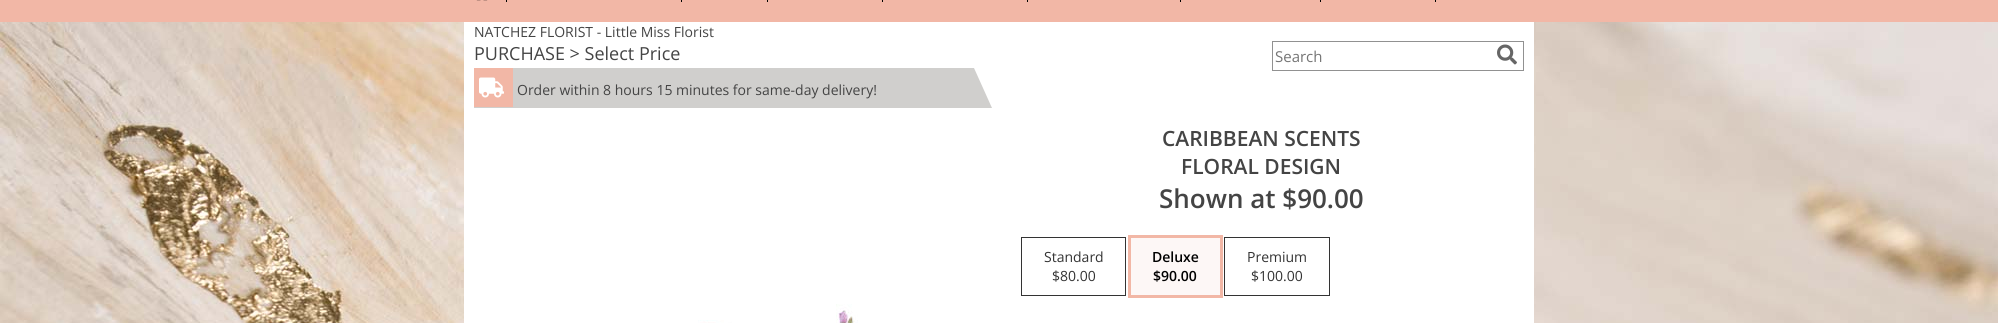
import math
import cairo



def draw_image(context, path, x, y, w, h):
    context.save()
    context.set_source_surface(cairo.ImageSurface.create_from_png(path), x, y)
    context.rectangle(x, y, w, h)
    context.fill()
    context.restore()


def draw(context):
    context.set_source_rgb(1, 1, 1)
    context.paint()
    draw_image(context, "images/1.png", 0, 22, 1998, 301)
    context.set_source_rgb(1, 1, 1)
    context.rectangle(464, 22, 1070, 301)
    context.fill()
    context.set_source_rgb(242 / 255, 183 / 255, 166 / 255)
    context.rectangle(0, 0, 1998, 22)
    context.fill()
    draw_image(context, "images/2.png", 476, 0, 12, 1)
    context.set_source_rgb(0, 0, 0)
    context.rectangle(506, 0, 1, 2)
    context.fill()
    context.rectangle(681, 0, 1, 2)
    context.fill()
    context.rectangle(767, 0, 1, 2)
    context.fill()
    context.rectangle(882, 0, 1, 2)
    context.fill()
    context.rectangle(1027, 0, 1, 2)
    context.fill()
    context.rectangle(1180, 0, 1, 2)
    context.fill()
    context.rectangle(1320, 0, 1, 2)
    context.fill()
    context.rectangle(1435, 0, 1, 2)
    context.fill()
    context.rectangle(1272.5, 41.5, 251, 29)
    context.set_source_rgb(145 / 255, 145 / 255, 145 / 255)
    context.set_line_width(1)
    context.stroke()
    draw_image(context, "images/3.png", 1497, 44, 20, 21)
    context.set_source_rgb(208 / 255, 207 / 255, 205 / 255)
    context.new_path()
    context.move_to(992, 108)
    context.line_to(474, 108)
    context.line_to(474, 68)
    context.line_to(974, 68)
    context.close_path()
    context.fill()
    context.set_source_rgb(242 / 255, 183 / 255, 166 / 255)
    context.rectangle(474, 68, 39, 39)
    context.fill()
    draw_image(context, "images/4.png", 479, 77, 25, 21)
    context.rectangle(1021.5, 237.5, 104, 58)
    context.set_source_rgb(51 / 255, 51 / 255, 51 / 255)
    context.stroke()
    context.rectangle(1129.5, 236.5, 92, 60)
    context.set_source_rgb(242 / 255, 183 / 255, 166 / 255)
    context.set_line_width(3)
    context.stroke()
    context.set_source_rgb(253 / 255, 247 / 255, 246 / 255)
    context.rectangle(1131, 238, 89, 57)
    context.fill()
    context.rectangle(1224.5, 237.5, 105, 58)
    context.set_source_rgb(51 / 255, 51 / 255, 51 / 255)
    context.set_line_width(1)
    context.stroke()
    draw_image(context, "images/5.png", 698, 304, 160, 19)
    context.select_font_face("Open Sans")
    context.set_font_size(14)
    context.set_source_rgb(68 / 255, 68 / 255, 68 / 255)
    context.move_to(474, 37)
    context.show_text("NATCHEZ FLORIST - Little Miss Florist")
    context.set_font_size(18)
    context.move_to(474, 60)
    context.show_text("PURCHASE > Select Price")
    context.set_font_size(15)
    context.set_source_rgb(117 / 255, 117 / 255, 117 / 255)
    context.move_to(1275, 62)
    context.show_text("Search")
    context.set_font_size(14)
    context.set_source_rgb(68 / 255, 68 / 255, 68 / 255)
    context.move_to(517, 95)
    context.show_text("Order within 8 hours 15 minutes for same-day delivery!")
    context.select_font_face("Open Sans SemiBold")
    context.set_font_size(21)
    context.move_to(1162, 146)
    context.show_text("CARIBBEAN SCENTS")
    context.move_to(1181, 174)
    context.show_text("FLORAL DESIGN")
    context.set_font_size(26)
    context.move_to(1159, 208)
    context.show_text("Shown at $90.00")
    context.select_font_face("Open Sans")
    context.set_font_size(14)
    context.set_source_rgb(51 / 255, 51 / 255, 51 / 255)
    context.move_to(1044, 262)
    context.show_text("Standard")
    context.move_to(1052, 281)
    context.show_text("$80.00")
    context.select_font_face("Open Sans SemiBold")
    context.set_source_rgb(0, 0, 0)
    context.move_to(1152, 262)
    context.show_text("Deluxe")
    context.move_to(1153, 281)
    context.show_text("$90.00")
    context.select_font_face("Open Sans")
    context.set_source_rgb(51 / 255, 51 / 255, 51 / 255)
    context.move_to(1247, 262)
    context.show_text("Premium")
    context.move_to(1251, 281)
    context.show_text("$100.00")


surface = cairo.ImageSurface(cairo.Format.RGB24, 1998, 323)
context = cairo.Context(surface)
options = cairo.FontOptions()
options.set_hint_metrics(cairo.HintMetrics.OFF)
options.set_hint_style(cairo.HintStyle.NONE)
context.set_font_options(options)
context.set_miter_limit(4)
draw(context)
surface.write_to_png("out.png")
